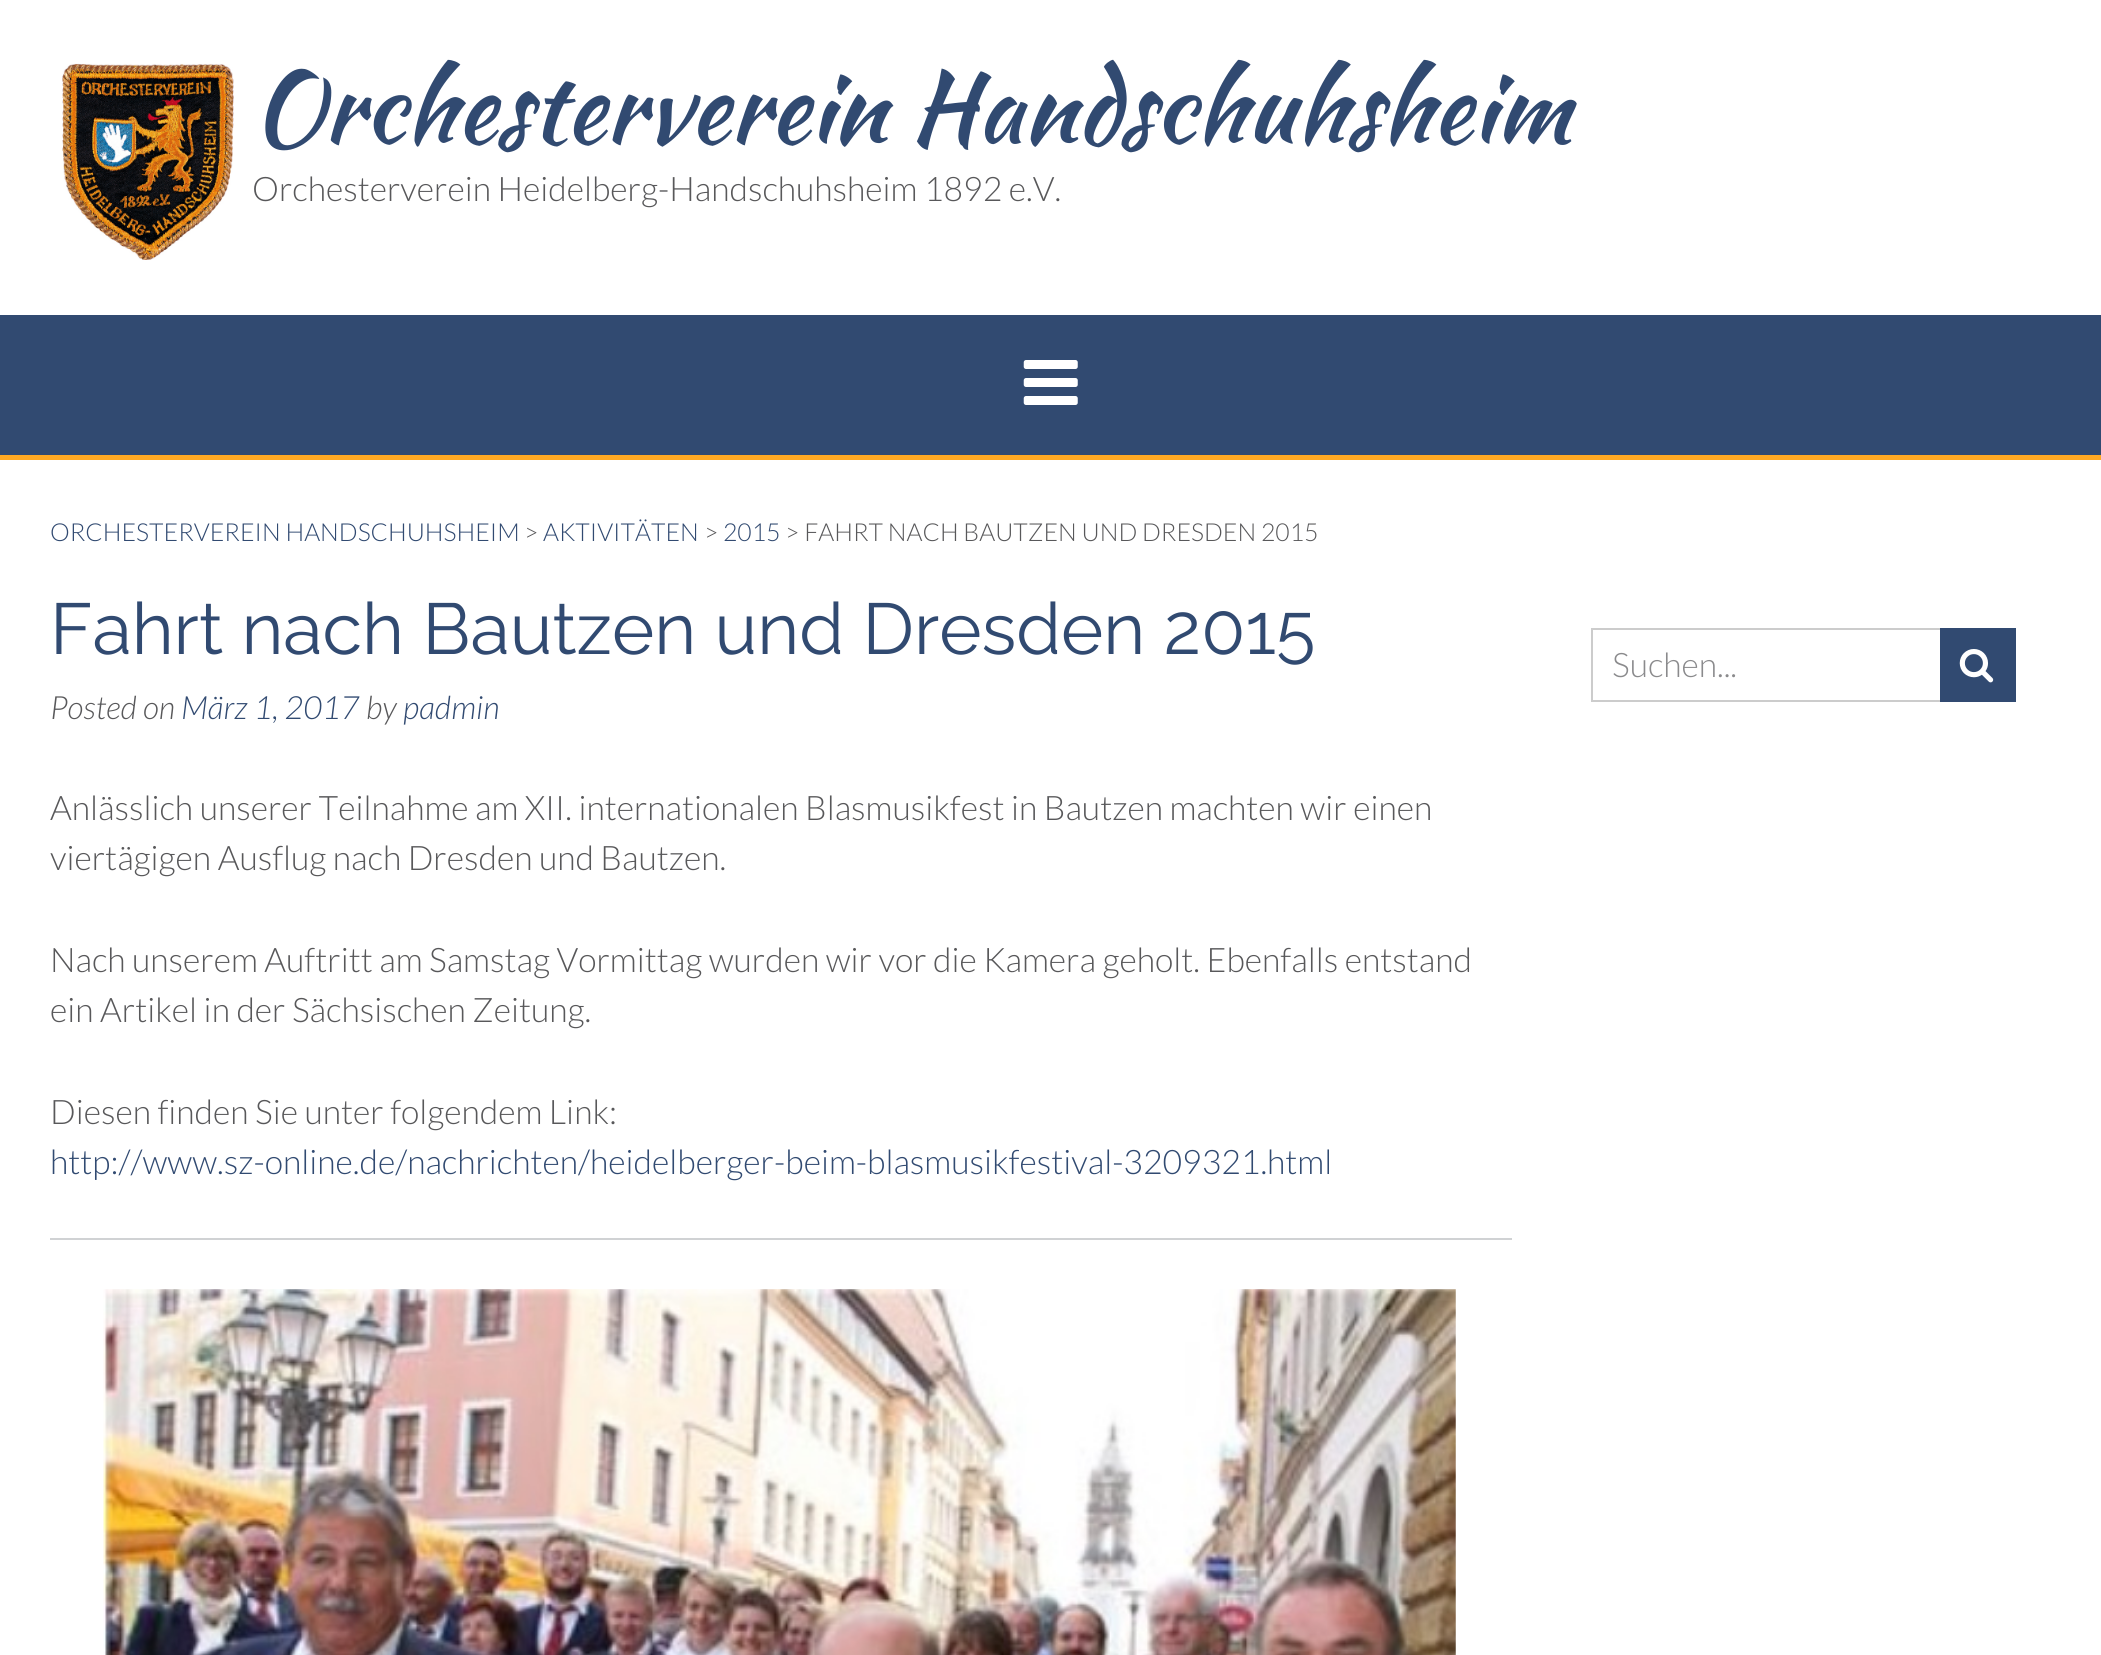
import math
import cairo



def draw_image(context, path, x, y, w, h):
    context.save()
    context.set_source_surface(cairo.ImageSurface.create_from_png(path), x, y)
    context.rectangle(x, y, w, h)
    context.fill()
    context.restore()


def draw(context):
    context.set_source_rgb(1, 1, 1)
    context.paint()
    draw_image(context, "images/1.png", 62, 63, 172, 197)
    context.set_source_rgb(49 / 255, 74 / 255, 113 / 255)
    context.rectangle(0, 315, 2101, 140)
    context.fill()
    context.set_source_rgb(1, 169 / 255, 36 / 255)
    context.rectangle(0, 455, 2101, 5)
    context.fill()
    draw_image(context, "images/2.png", 1023, 360, 55, 45)
    context.set_source_rgb(208 / 255, 210 / 255, 212 / 255)
    context.rectangle(50, 1238, 1462, 2)
    context.fill()
    draw_image(context, "images/3.png", 103, 1289, 1353, 366)
    context.rectangle(1592, 629, 353, 72)
    context.set_source_rgb(204 / 255, 204 / 255, 204 / 255)
    context.stroke()
    context.set_source_rgb(49 / 255, 74 / 255, 113 / 255)
    context.rectangle(1940, 628, 76, 74)
    context.fill()
    draw_image(context, "images/4.png", 1959, 649, 35, 34)
    context.select_font_face("Kaushan Script")
    context.set_font_size(99)
    context.move_to(252, 142)
    context.show_text("Orchesterverein Handschuhsheim")
    context.select_font_face("Lato Light")
    context.set_font_size(33.75)
    context.set_source_rgb(88 / 255, 88 / 255, 90 / 255)
    context.move_to(252, 201)
    context.show_text("Orchesterverein Heidelberg-Handschuhsheim 1892 e.V.")
    context.set_font_size(24.75)
    context.set_source_rgb(49 / 255, 74 / 255, 113 / 255)
    context.move_to(50, 541)
    context.show_text("ORCHESTERVEREIN HANDSCHUHSHEIM")
    context.set_source_rgb(88 / 255, 88 / 255, 90 / 255)
    context.move_to(524, 541)
    context.show_text(">")
    context.set_source_rgb(49 / 255, 74 / 255, 113 / 255)
    context.move_to(543, 541)
    context.show_text("AKTIVITÄTEN")
    context.set_source_rgb(88 / 255, 88 / 255, 90 / 255)
    context.move_to(704, 541)
    context.show_text(">")
    context.set_source_rgb(49 / 255, 74 / 255, 113 / 255)
    context.move_to(723, 541)
    context.show_text("2015")
    context.set_source_rgb(88 / 255, 88 / 255, 90 / 255)
    context.move_to(785, 541)
    context.show_text("> FAHRT NACH BAUTZEN UND DRESDEN 2015")
    context.select_font_face("Raleway")
    context.set_font_size(72)
    context.set_source_rgb(49 / 255, 74 / 255, 113 / 255)
    context.move_to(50, 654)
    context.show_text("Fahrt nach Bautzen und Dresden 2015")
    context.select_font_face("Lato Light", cairo.FontSlant.ITALIC)
    context.set_font_size(32)
    context.set_source_rgb(88 / 255, 88 / 255, 90 / 255)
    context.move_to(50, 719)
    context.show_text("Posted on")
    context.set_source_rgb(49 / 255, 74 / 255, 113 / 255)
    context.move_to(181, 719)
    context.show_text("März 1, 2017")
    context.set_source_rgb(88 / 255, 88 / 255, 90 / 255)
    context.move_to(366, 719)
    context.show_text("by")
    context.set_source_rgb(49 / 255, 74 / 255, 113 / 255)
    context.move_to(403, 719)
    context.show_text("padmin")
    context.select_font_face("Lato Light")
    context.set_font_size(33.75)
    context.set_source_rgb(88 / 255, 88 / 255, 90 / 255)
    context.move_to(50, 820)
    context.show_text("Anlässlich unserer Teilnahme am XII. internationalen Blasmusikfest in Bautzen machten wir einen")
    context.move_to(50, 870)
    context.show_text("viertägigen Ausflug nach Dresden und Bautzen.")
    context.move_to(50, 972)
    context.show_text("Nach unserem Auftritt am Samstag Vormittag wurden wir vor die Kamera geholt. Ebenfalls entstand")
    context.move_to(50, 1022)
    context.show_text("ein Artikel in der Sächsischen Zeitung.")
    context.move_to(50, 1124)
    context.show_text("Diesen finden Sie unter folgendem Link:")
    context.set_source_rgb(49 / 255, 74 / 255, 113 / 255)
    context.move_to(50, 1174)
    context.show_text("http://www.sz-online.de/nachrichten/heidelberger-beim-blasmusikfestival-3209321.html")
    context.set_source_rgb(138 / 255, 138 / 255, 140 / 255)
    context.move_to(1612, 677)
    context.show_text("Suchen...")


surface = cairo.ImageSurface(cairo.Format.RGB24, 2101, 1655)
context = cairo.Context(surface)
options = cairo.FontOptions()
options.set_hint_metrics(cairo.HintMetrics.OFF)
options.set_hint_style(cairo.HintStyle.NONE)
context.set_font_options(options)
context.set_miter_limit(4)
draw(context)
surface.write_to_png("out.png")
